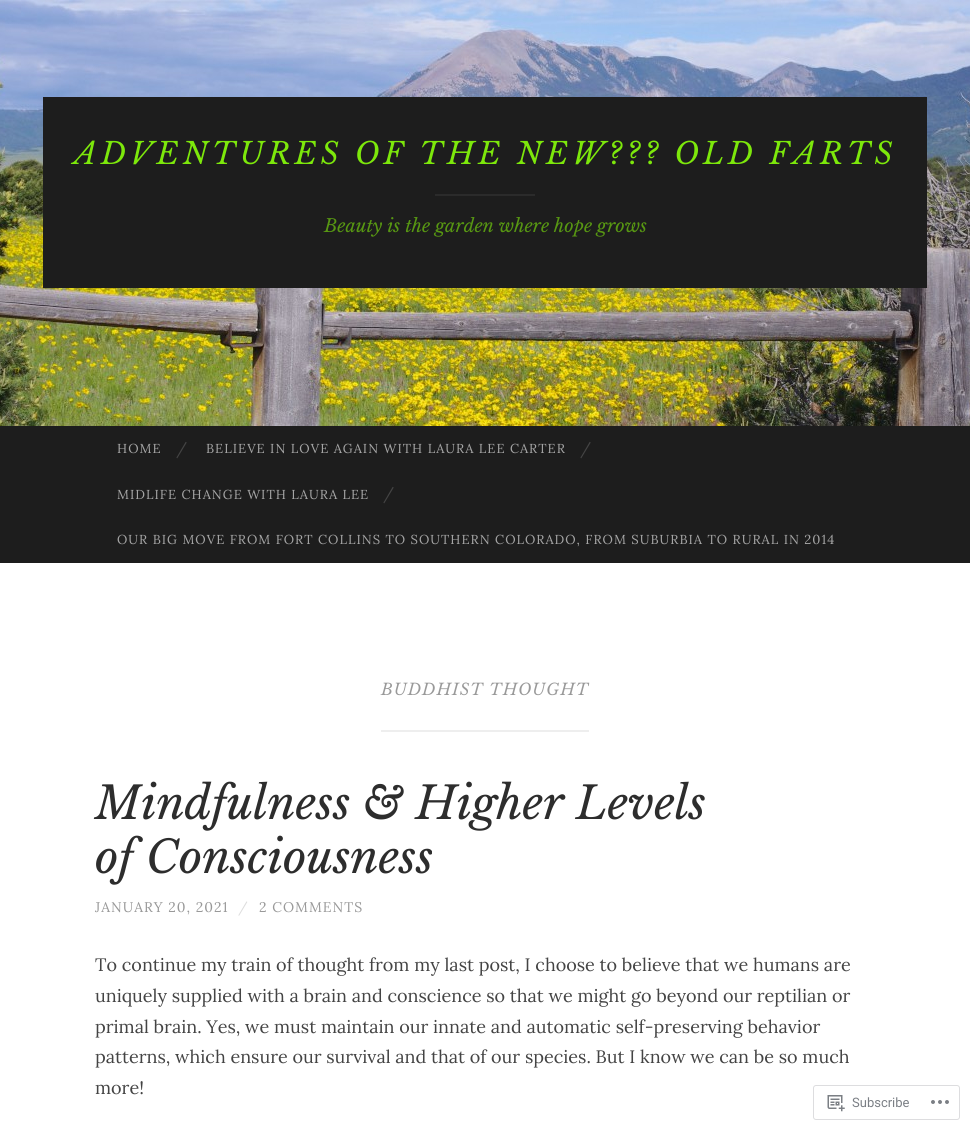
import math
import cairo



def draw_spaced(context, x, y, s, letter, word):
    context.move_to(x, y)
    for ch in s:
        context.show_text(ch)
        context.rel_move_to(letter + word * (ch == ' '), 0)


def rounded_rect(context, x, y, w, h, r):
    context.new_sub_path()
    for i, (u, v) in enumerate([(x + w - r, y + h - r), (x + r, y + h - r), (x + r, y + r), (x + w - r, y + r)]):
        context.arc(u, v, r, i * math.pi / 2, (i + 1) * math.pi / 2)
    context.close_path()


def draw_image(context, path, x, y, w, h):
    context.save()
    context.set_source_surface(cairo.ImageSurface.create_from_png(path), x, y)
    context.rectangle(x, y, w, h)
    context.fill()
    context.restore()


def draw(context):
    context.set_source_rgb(1, 1, 1)
    context.paint()
    draw_image(context, "images/1.png", 0, 0, 970, 426)
    context.set_source_rgb(29 / 255, 29 / 255, 29 / 255)
    context.rectangle(43, 97, 884, 191)
    context.fill()
    context.set_source_rgb(43 / 255, 43 / 255, 43 / 255)
    context.rectangle(435, 194, 100, 2)
    context.fill()
    context.set_source_rgb(29 / 255, 29 / 255, 29 / 255)
    context.rectangle(0, 426, 970, 137)
    context.fill()
    context.set_source_rgb(238 / 255, 238 / 255, 238 / 255)
    context.rectangle(381, 730, 208, 2)
    context.fill()
    rounded_rect(context, 813.5, 1085.5, 146, 34, 2.5)
    context.set_source_rgb(221 / 255, 221 / 255, 223 / 255)
    context.set_line_width(1)
    context.stroke()
    draw_image(context, "images/2.png", 827, 1095, 18, 17)
    draw_image(context, "images/3.png", 931, 1100, 18, 4)
    context.select_font_face("Libre Baskerville", cairo.FontSlant.ITALIC)
    context.set_font_size(30)
    context.set_source_rgb(125 / 255, 232 / 255, 11 / 255)
    draw_spaced(context, 74, 164, "ADVENTURES OF THE NEW??? OLD FARTS", 4, 0)
    context.set_font_size(18)
    context.set_source_rgb(87 / 255, 151 / 255, 18 / 255)
    context.move_to(324, 232)
    context.show_text("Beauty is the garden where hope grows")
    context.select_font_face("Lora")
    context.set_font_size(13)
    context.set_source_rgb(165 / 255, 165 / 255, 165 / 255)
    draw_spaced(context, 117, 453, "HOME", 1, 0)
    context.set_font_size(16)
    context.set_source_rgb(68 / 255, 68 / 255, 68 / 255)
    context.move_to(176, 454)
    context.show_text("/")
    context.set_font_size(13)
    context.set_source_rgb(165 / 255, 165 / 255, 165 / 255)
    draw_spaced(context, 206, 453, "BELIEVE IN LOVE AGAIN WITH LAURA LEE CARTER", 1, 0)
    context.set_font_size(16)
    context.set_source_rgb(68 / 255, 68 / 255, 68 / 255)
    context.move_to(580, 454)
    context.show_text("/")
    context.set_font_size(13)
    context.set_source_rgb(165 / 255, 165 / 255, 165 / 255)
    draw_spaced(context, 117, 499, "MIDLIFE CHANGE WITH LAURA LEE", 1, 0)
    context.set_font_size(16)
    context.set_source_rgb(68 / 255, 68 / 255, 68 / 255)
    context.move_to(383, 499)
    context.show_text("/")
    context.set_font_size(13)
    context.set_source_rgb(165 / 255, 165 / 255, 165 / 255)
    draw_spaced(context, 117, 544, "OUR BIG MOVE FROM FORT COLLINS TO SOUTHERN COLORADO, FROM SUBURBIA TO RURAL IN 2014", 1, 0)
    context.select_font_face("Libre Baskerville", cairo.FontSlant.ITALIC)
    context.set_font_size(16)
    context.set_source_rgb(153 / 255, 153 / 255, 153 / 255)
    draw_spaced(context, 381, 695, "BUDDHIST THOUGHT", 1, 0)
    context.set_font_size(45)
    context.set_source_rgb(45 / 255, 45 / 255, 45 / 255)
    context.move_to(95, 819)
    context.show_text("Mindfulness & Higher Levels")
    context.move_to(95, 873)
    context.show_text("of Consciousness")
    context.select_font_face("Lora")
    context.set_font_size(14)
    context.set_source_rgb(153 / 255, 153 / 255, 153 / 255)
    draw_spaced(context, 95, 912, "JANUARY 20, 2021", 1, 0)
    context.set_source_rgb(221 / 255, 221 / 255, 221 / 255)
    draw_spaced(context, 238, 912, "/", 1, 0)
    context.set_source_rgb(153 / 255, 153 / 255, 153 / 255)
    draw_spaced(context, 259, 912, "2 COMMENTS", 1, 0)
    context.set_font_size(18)
    context.set_source_rgb(68 / 255, 68 / 255, 68 / 255)
    context.move_to(95, 971)
    context.show_text("To continue my train of thought from my last post, I choose to believe that we humans are")
    context.move_to(95, 1002)
    context.show_text("uniquely supplied with a brain and conscience so that we might go beyond our reptilian or")
    context.move_to(95, 1033)
    context.show_text("primal brain. Yes, we must maintain our innate and automatic self-preserving behavior")
    context.move_to(95, 1063)
    context.show_text("patterns, which ensure our survival and that of our species. But I know we can be so much")
    context.move_to(95, 1094)
    context.show_text("more!")
    context.select_font_face("Roboto")
    context.set_font_size(13)
    context.set_source_rgb(123 / 255, 127 / 255, 133 / 255)
    context.move_to(852, 1107)
    context.show_text("Subscribe")


surface = cairo.ImageSurface(cairo.Format.RGB24, 970, 1130)
context = cairo.Context(surface)
options = cairo.FontOptions()
options.set_hint_metrics(cairo.HintMetrics.OFF)
options.set_hint_style(cairo.HintStyle.NONE)
context.set_font_options(options)
context.set_miter_limit(4)
draw(context)
surface.write_to_png("out.png")
